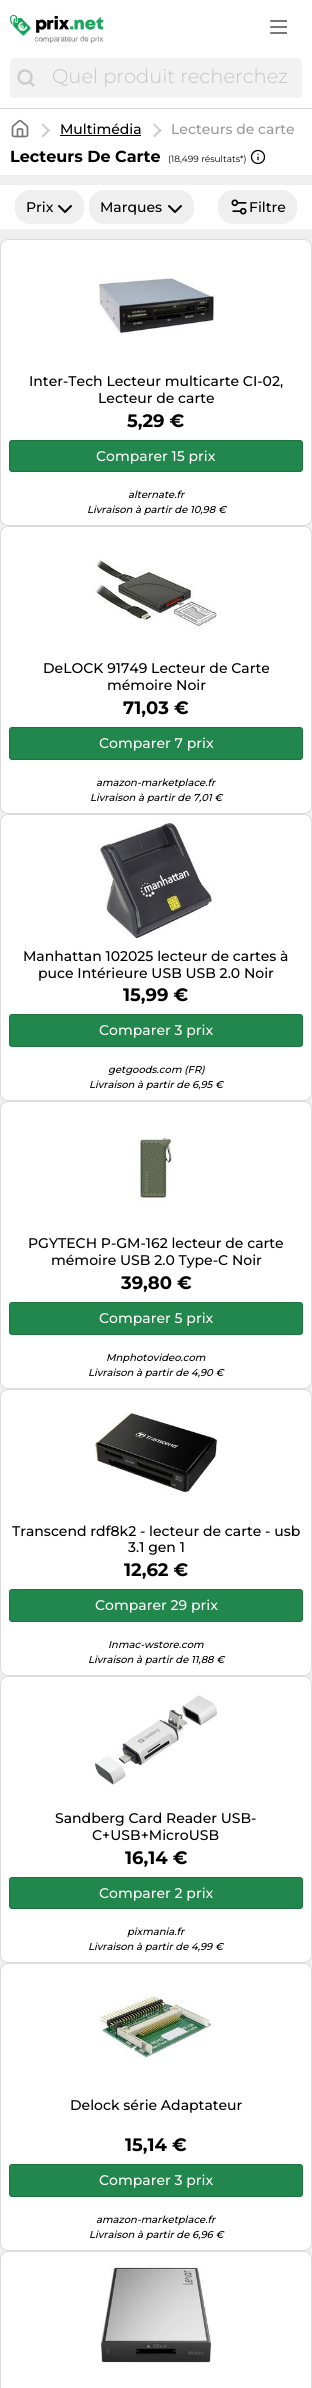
import math
import cairo



def rounded_rect(context, x, y, w, h, r):
    context.new_sub_path()
    for i, (u, v) in enumerate([(x + w - r, y + h - r), (x + r, y + h - r), (x + r, y + r), (x + w - r, y + r)]):
        context.arc(u, v, r, i * math.pi / 2, (i + 1) * math.pi / 2)
    context.close_path()


def draw_image(context, path, x, y, w, h):
    context.save()
    context.set_source_surface(cairo.ImageSurface.create_from_png(path), x, y)
    context.rectangle(x, y, w, h)
    context.fill()
    context.restore()


def draw(context):
    context.set_source_rgb(239 / 255, 239 / 255, 239 / 255)
    context.paint()
    context.set_source_rgb(1, 1, 1)
    context.rectangle(0, 0, 312, 108)
    context.fill()
    draw_image(context, "images/1.png", 10, 14, 94, 30)
    draw_image(context, "images/2.png", 270, 20, 17, 14)
    context.set_source_rgb(242 / 255, 242 / 255, 242 / 255)
    context.new_path()
    context.move_to(14, 58)
    context.line_to(42, 58)
    context.line_to(42, 98)
    context.line_to(14, 98)
    context.curve_to(12, 98, 10, 96, 10, 94)
    context.line_to(10, 62)
    context.curve_to(10, 60, 12, 58, 14, 58)
    context.close_path()
    context.fill()
    context.arc(25, 77, 6.5, 0, 2 * math.pi)
    context.set_source_rgb(204 / 255, 204 / 255, 204 / 255)
    context.set_line_width(2.5)
    context.stroke()
    context.new_path()
    context.move_to(33.5, 85.5)
    context.line_to(30, 82)
    context.set_line_cap(cairo.LineCap.ROUND)
    context.set_line_join(cairo.LineJoin.ROUND)
    context.stroke()
    context.set_source_rgb(242 / 255, 242 / 255, 242 / 255)
    context.new_path()
    context.move_to(42, 58)
    context.line_to(298, 58)
    context.curve_to(300, 58, 302, 60, 302, 62)
    context.line_to(302, 94)
    context.curve_to(302, 96, 300, 98, 298, 98)
    context.line_to(42, 98)
    context.close_path()
    context.fill()
    context.set_source_rgb(214 / 255, 214 / 255, 214 / 255)
    context.rectangle(0, 108, 312, 1)
    context.fill()
    context.set_source_rgb(1, 1, 1)
    context.rectangle(0, 109, 312, 66)
    context.fill()
    draw_image(context, "images/3.png", 11, 119, 18, 19)
    context.set_source_rgb(204 / 255, 204 / 255, 204 / 255)
    context.new_path()
    context.move_to(41.5, 124.5)
    context.line_to(43, 123.5)
    context.line_to(50, 130.5)
    context.line_to(48.5, 132)
    context.close_path()
    context.fill()
    context.new_path()
    context.move_to(41.5, 136)
    context.line_to(48.5, 129)
    context.line_to(50, 130.5)
    context.line_to(43, 137.5)
    context.close_path()
    context.fill()
    context.set_source_rgb(0, 0, 0)
    context.rectangle(60, 135, 81, 1)
    context.fill()
    context.set_source_rgb(204 / 255, 204 / 255, 204 / 255)
    context.new_path()
    context.move_to(153, 124.5)
    context.line_to(154.5, 123.5)
    context.line_to(161.5, 130.5)
    context.line_to(160, 132)
    context.close_path()
    context.fill()
    context.new_path()
    context.move_to(153, 136)
    context.line_to(160, 129)
    context.line_to(161.5, 130.5)
    context.line_to(154.5, 137.5)
    context.close_path()
    context.fill()
    draw_image(context, "images/4.png", 250, 149, 16, 16)
    context.set_source_rgb(1, 1, 1)
    context.rectangle(0, 185, 312, 44)
    context.fill()
    context.set_source_rgb(239 / 255, 239 / 255, 239 / 255)
    rounded_rect(context, 15.5, 190.5, 68, 33, 14.5)
    context.fill_preserve()
    context.set_line_width(1)
    context.set_line_cap(cairo.LineCap.BUTT)
    context.set_line_join(cairo.LineJoin.MITER)
    context.stroke()
    context.new_path()
    context.move_to(59, 206)
    context.line_to(65, 212)
    context.line_to(71, 206)
    context.set_source_rgb(0, 0, 0)
    context.set_line_width(2)
    context.set_line_cap(cairo.LineCap.ROUND)
    context.set_line_join(cairo.LineJoin.ROUND)
    context.stroke()
    context.set_source_rgb(239 / 255, 239 / 255, 239 / 255)
    rounded_rect(context, 89.5, 190.5, 104, 33, 14.5)
    context.fill_preserve()
    context.set_line_width(1)
    context.set_line_cap(cairo.LineCap.BUTT)
    context.set_line_join(cairo.LineJoin.MITER)
    context.stroke()
    context.new_path()
    context.move_to(169, 206)
    context.line_to(175, 212)
    context.line_to(181, 206)
    context.set_source_rgb(0, 0, 0)
    context.set_line_width(2)
    context.set_line_cap(cairo.LineCap.ROUND)
    context.set_line_join(cairo.LineJoin.ROUND)
    context.stroke()
    context.set_source_rgb(239 / 255, 239 / 255, 239 / 255)
    rounded_rect(context, 218.5, 190.5, 78, 33, 14.5)
    context.fill_preserve()
    context.set_line_width(1)
    context.set_line_cap(cairo.LineCap.BUTT)
    context.set_line_join(cairo.LineJoin.MITER)
    context.stroke()
    draw_image(context, "images/5.png", 231, 199, 16, 16)
    context.set_source_rgb(1, 1, 1)
    rounded_rect(context, 0, 239, 312, 287, 8)
    context.fill()
    rounded_rect(context, 0.5, 239.5, 311, 286, 7.5)
    context.set_source_rgba(119 / 255, 119 / 255, 119 / 255, 0.25)
    context.stroke()
    draw_image(context, "images/6.png", 97, 276, 118, 59)
    context.set_source_rgb(34 / 255, 135 / 255, 76 / 255)
    rounded_rect(context, 9.5, 440.5, 293, 31, 2.5)
    context.fill_preserve()
    context.set_source_rgb(29 / 255, 115 / 255, 65 / 255)
    context.stroke()
    context.set_source_rgb(1, 1, 1)
    rounded_rect(context, 0, 526, 312, 288, 8)
    context.fill()
    rounded_rect(context, 0.5, 526.5, 311, 287, 7.5)
    context.set_source_rgba(119 / 255, 119 / 255, 119 / 255, 0.25)
    context.stroke()
    draw_image(context, "images/7.png", 92, 558, 128, 70)
    context.set_source_rgb(34 / 255, 135 / 255, 76 / 255)
    rounded_rect(context, 9.5, 727.5, 293, 32, 2.5)
    context.fill_preserve()
    context.set_source_rgb(29 / 255, 115 / 255, 65 / 255)
    context.stroke()
    context.set_source_rgb(1, 1, 1)
    rounded_rect(context, 0, 814, 312, 287, 8)
    context.fill()
    rounded_rect(context, 0.5, 814.5, 311, 286, 7.5)
    context.set_source_rgba(119 / 255, 119 / 255, 119 / 255, 0.25)
    context.stroke()
    draw_image(context, "images/8.png", 97, 823, 118, 115)
    context.set_source_rgb(34 / 255, 135 / 255, 76 / 255)
    rounded_rect(context, 9.5, 1014.5, 293, 32, 2.5)
    context.fill_preserve()
    context.set_source_rgb(29 / 255, 115 / 255, 65 / 255)
    context.stroke()
    context.set_source_rgb(1, 1, 1)
    rounded_rect(context, 0, 1101, 312, 288, 8)
    context.fill()
    rounded_rect(context, 0.5, 1101.5, 311, 287, 7.5)
    context.set_source_rgba(119 / 255, 119 / 255, 119 / 255, 0.25)
    context.stroke()
    draw_image(context, "images/9.png", 133, 1136, 41, 66)
    context.set_source_rgb(34 / 255, 135 / 255, 76 / 255)
    rounded_rect(context, 9.5, 1302.5, 293, 32, 2.5)
    context.fill_preserve()
    context.set_source_rgb(29 / 255, 115 / 255, 65 / 255)
    context.stroke()
    context.set_source_rgb(1, 1, 1)
    rounded_rect(context, 0, 1389, 312, 287, 8)
    context.fill()
    rounded_rect(context, 0.5, 1389.5, 311, 286, 7.5)
    context.set_source_rgba(119 / 255, 119 / 255, 119 / 255, 0.25)
    context.stroke()
    draw_image(context, "images/10.png", 95, 1411, 122, 85)
    context.set_source_rgb(34 / 255, 135 / 255, 76 / 255)
    rounded_rect(context, 9.5, 1589.5, 293, 32, 2.5)
    context.fill_preserve()
    context.set_source_rgb(29 / 255, 115 / 255, 65 / 255)
    context.stroke()
    context.set_source_rgb(1, 1, 1)
    rounded_rect(context, 0, 1676, 312, 287, 8)
    context.fill()
    rounded_rect(context, 0.5, 1676.5, 311, 286, 7.5)
    context.set_source_rgba(119 / 255, 119 / 255, 119 / 255, 0.25)
    context.stroke()
    draw_image(context, "images/11.png", 95, 1695, 122, 93)
    context.set_source_rgb(34 / 255, 135 / 255, 76 / 255)
    rounded_rect(context, 9.5, 1877.5, 293, 31, 2.5)
    context.fill_preserve()
    context.set_source_rgb(29 / 255, 115 / 255, 65 / 255)
    context.stroke()
    context.set_source_rgb(1, 1, 1)
    rounded_rect(context, 0, 1963, 312, 288, 8)
    context.fill()
    rounded_rect(context, 0.5, 1963.5, 311, 287, 7.5)
    context.set_source_rgba(119 / 255, 119 / 255, 119 / 255, 0.25)
    context.stroke()
    draw_image(context, "images/12.png", 99, 1992, 113, 68)
    context.set_source_rgb(34 / 255, 135 / 255, 76 / 255)
    rounded_rect(context, 9.5, 2164.5, 293, 32, 2.5)
    context.fill_preserve()
    context.set_source_rgb(29 / 255, 115 / 255, 65 / 255)
    context.stroke()
    context.set_source_rgb(1, 1, 1)
    rounded_rect(context, 0, 2251, 312, 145, 8)
    context.fill()
    rounded_rect(context, 0.5, 2251.5, 311, 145, 7.5)
    context.set_source_rgba(119 / 255, 119 / 255, 119 / 255, 0.25)
    context.stroke()
    draw_image(context, "images/13.png", 100, 2265, 112, 98)
    context.select_font_face("Montserrat Light")
    context.set_font_size(19.5)
    context.set_source_rgb(196 / 255, 196 / 255, 196 / 255)
    context.move_to(52, 83)
    context.show_text("Quel produit recherchez")
    context.select_font_face("Montserrat Thin")
    context.set_font_size(14)
    context.set_source_rgb(0, 0, 0)
    context.move_to(60, 134)
    context.show_text("Multimédia")
    context.set_source_rgb(154 / 255, 154 / 255, 154 / 255)
    context.move_to(171, 134)
    context.show_text("Lecteurs de carte")
    context.select_font_face("Montserrat", cairo.FontSlant.NORMAL, cairo.FontWeight.BOLD)
    context.set_font_size(16)
    context.set_source_rgb(0, 0, 0)
    context.move_to(10, 162)
    context.show_text("Lecteurs De Carte")
    context.select_font_face("Montserrat")
    context.set_font_size(9)
    context.move_to(168, 162)
    context.show_text("(18,499 résultats*)")
    context.select_font_face("Montserrat Thin")
    context.set_font_size(14)
    context.move_to(26, 212)
    context.show_text("Prix")
    context.move_to(100, 212)
    context.show_text("Marques")
    context.move_to(249, 212)
    context.show_text("Filtre")
    context.move_to(29, 386)
    context.show_text("Inter-Tech Lecteur multicarte CI-02,")
    context.move_to(98, 403)
    context.show_text("Lecteur de carte")
    context.select_font_face("Montserrat", cairo.FontSlant.NORMAL, cairo.FontWeight.BOLD)
    context.set_font_size(18)
    context.move_to(127, 427)
    context.show_text("5,29 €")
    context.select_font_face("Montserrat Thin")
    context.set_font_size(14)
    context.set_source_rgb(1, 1, 1)
    context.move_to(96, 461)
    context.show_text("Comparer 15 prix")
    context.select_font_face("Montserrat Thin", cairo.FontSlant.ITALIC)
    context.set_font_size(10)
    context.set_source_rgb(0, 0, 0)
    context.move_to(128, 498)
    context.show_text("alternate.fr")
    context.move_to(87, 513)
    context.show_text("Livraison à partir de 10,98 €")
    context.select_font_face("Montserrat Thin")
    context.set_font_size(14)
    context.move_to(43, 673)
    context.show_text("DeLOCK 91749 Lecteur de Carte")
    context.move_to(107, 690)
    context.show_text("mémoire Noir")
    context.select_font_face("Montserrat", cairo.FontSlant.NORMAL, cairo.FontWeight.BOLD)
    context.set_font_size(18)
    context.move_to(123, 714)
    context.show_text("71,03 €")
    context.select_font_face("Montserrat Thin")
    context.set_font_size(14)
    context.set_source_rgb(1, 1, 1)
    context.move_to(99, 748)
    context.show_text("Comparer 7 prix")
    context.select_font_face("Montserrat Thin", cairo.FontSlant.ITALIC)
    context.set_font_size(10)
    context.set_source_rgb(0, 0, 0)
    context.move_to(96, 786)
    context.show_text("amazon-marketplace.fr")
    context.move_to(90, 801)
    context.show_text("Livraison à partir de 7,01 €")
    context.select_font_face("Montserrat Thin")
    context.set_font_size(14)
    context.move_to(23, 961)
    context.show_text("Manhattan 102025 lecteur de cartes à")
    context.move_to(38, 978)
    context.show_text("puce Intérieure USB USB 2.0 Noir")
    context.select_font_face("Montserrat", cairo.FontSlant.NORMAL, cairo.FontWeight.BOLD)
    context.set_font_size(18)
    context.move_to(123, 1001)
    context.show_text("15,99 €")
    context.select_font_face("Montserrat Thin")
    context.set_font_size(14)
    context.set_source_rgb(1, 1, 1)
    context.move_to(99, 1035)
    context.show_text("Comparer 3 prix")
    context.select_font_face("Montserrat Thin", cairo.FontSlant.ITALIC)
    context.set_font_size(10)
    context.set_source_rgb(0, 0, 0)
    context.move_to(108, 1073)
    context.show_text("getgoods.com (FR)")
    context.move_to(89, 1088)
    context.show_text("Livraison à partir de 6,95 €")
    context.select_font_face("Montserrat Thin")
    context.set_font_size(14)
    context.move_to(28, 1248)
    context.show_text("PGYTECH P-GM-162 lecteur de carte")
    context.move_to(51, 1265)
    context.show_text("mémoire USB 2.0 Type-C Noir")
    context.select_font_face("Montserrat", cairo.FontSlant.NORMAL, cairo.FontWeight.BOLD)
    context.set_font_size(18)
    context.move_to(121, 1289)
    context.show_text("39,80 €")
    context.select_font_face("Montserrat Thin")
    context.set_font_size(14)
    context.set_source_rgb(1, 1, 1)
    context.move_to(99, 1323)
    context.show_text("Comparer 5 prix")
    context.select_font_face("Montserrat Thin", cairo.FontSlant.ITALIC)
    context.set_font_size(10)
    context.set_source_rgb(0, 0, 0)
    context.move_to(106, 1361)
    context.show_text("Mnphotovideo.com")
    context.move_to(88, 1376)
    context.show_text("Livraison à partir de 4,90 €")
    context.select_font_face("Montserrat Thin")
    context.set_font_size(14)
    context.move_to(12, 1536)
    context.show_text("Transcend rdf8k2 - lecteur de carte - usb")
    context.move_to(128, 1552)
    context.show_text("3.1 gen 1")
    context.select_font_face("Montserrat", cairo.FontSlant.NORMAL, cairo.FontWeight.BOLD)
    context.set_font_size(18)
    context.move_to(124, 1576)
    context.show_text("12,62 €")
    context.select_font_face("Montserrat Thin")
    context.set_font_size(14)
    context.set_source_rgb(1, 1, 1)
    context.move_to(95, 1610)
    context.show_text("Comparer 29 prix")
    context.select_font_face("Montserrat Thin", cairo.FontSlant.ITALIC)
    context.set_font_size(10)
    context.set_source_rgb(0, 0, 0)
    context.move_to(108, 1648)
    context.show_text("Inmac-wstore.com")
    context.move_to(88, 1663)
    context.show_text("Livraison à partir de 11,88 €")
    context.select_font_face("Montserrat Thin")
    context.set_font_size(14)
    context.move_to(55, 1823)
    context.show_text("Sandberg Card Reader USB-")
    context.move_to(92, 1840)
    context.show_text("C+USB+MicroUSB")
    context.select_font_face("Montserrat", cairo.FontSlant.NORMAL, cairo.FontWeight.BOLD)
    context.set_font_size(18)
    context.move_to(125, 1864)
    context.show_text("16,14 €")
    context.select_font_face("Montserrat Thin")
    context.set_font_size(14)
    context.set_source_rgb(1, 1, 1)
    context.move_to(99, 1898)
    context.show_text("Comparer 2 prix")
    context.select_font_face("Montserrat Thin", cairo.FontSlant.ITALIC)
    context.set_font_size(10)
    context.set_source_rgb(0, 0, 0)
    context.move_to(127, 1935)
    context.show_text("pixmania.fr")
    context.move_to(88, 1950)
    context.show_text("Livraison à partir de 4,99 €")
    context.select_font_face("Montserrat Thin")
    context.set_font_size(14)
    context.move_to(70, 2110)
    context.show_text("Delock série Adaptateur")
    context.select_font_face("Montserrat", cairo.FontSlant.NORMAL, cairo.FontWeight.BOLD)
    context.set_font_size(18)
    context.move_to(125, 2151)
    context.show_text("15,14 €")
    context.select_font_face("Montserrat Thin")
    context.set_font_size(14)
    context.set_source_rgb(1, 1, 1)
    context.move_to(99, 2185)
    context.show_text("Comparer 3 prix")
    context.select_font_face("Montserrat Thin", cairo.FontSlant.ITALIC)
    context.set_font_size(10)
    context.set_source_rgb(0, 0, 0)
    context.move_to(96, 2223)
    context.show_text("amazon-marketplace.fr")
    context.move_to(89, 2238)
    context.show_text("Livraison à partir de 6,96 €")


surface = cairo.ImageSurface(cairo.Format.RGB24, 312, 2388)
context = cairo.Context(surface)
options = cairo.FontOptions()
options.set_hint_metrics(cairo.HintMetrics.OFF)
options.set_hint_style(cairo.HintStyle.NONE)
context.set_font_options(options)
context.set_miter_limit(4)
draw(context)
surface.write_to_png("out.png")
